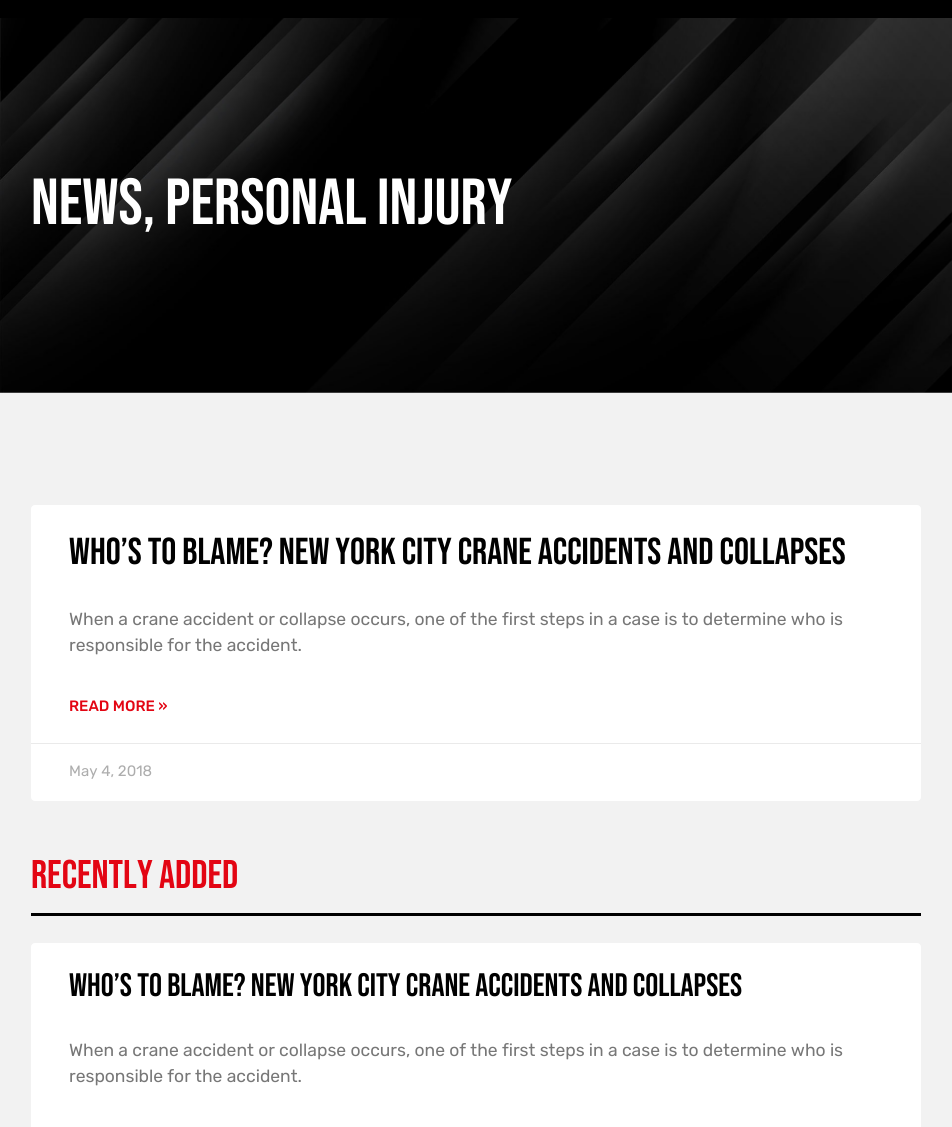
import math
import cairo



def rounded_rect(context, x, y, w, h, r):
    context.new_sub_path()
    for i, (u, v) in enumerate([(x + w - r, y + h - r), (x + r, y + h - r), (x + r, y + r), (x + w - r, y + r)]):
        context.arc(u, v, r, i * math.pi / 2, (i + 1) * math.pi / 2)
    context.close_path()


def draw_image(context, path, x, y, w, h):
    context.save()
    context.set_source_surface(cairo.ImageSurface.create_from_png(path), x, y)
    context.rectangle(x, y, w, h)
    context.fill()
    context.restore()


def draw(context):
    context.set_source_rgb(242 / 255, 242 / 255, 242 / 255)
    context.paint()
    context.set_source_rgb(0, 0, 0)
    context.rectangle(0, 0, 952, 18)
    context.fill()
    draw_image(context, "images/1.png", 0, 18, 952, 375)
    context.set_source_rgb(1, 1, 1)
    rounded_rect(context, 31, 505, 890, 296, 4)
    context.fill()
    context.set_source_rgb(234 / 255, 234 / 255, 234 / 255)
    context.rectangle(31, 743, 890, 1)
    context.fill()
    context.set_source_rgb(0, 0, 0)
    context.rectangle(31, 913, 890, 3)
    context.fill()
    context.set_source_rgb(1, 1, 1)
    rounded_rect(context, 31, 943, 890, 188, 4)
    context.fill()
    context.select_font_face("Bebas Neue")
    context.set_font_size(65)
    context.move_to(31, 224)
    context.show_text("News, Personal Injury")
    context.set_font_size(37.5)
    context.set_source_rgb(0, 0, 0)
    context.move_to(69, 564)
    context.show_text("Who’s to Blame? New York City Crane Accidents and Collapses")
    context.select_font_face("Rubik")
    context.set_font_size(17.5)
    context.set_source_rgb(119 / 255, 119 / 255, 119 / 255)
    context.move_to(69, 625)
    context.show_text("When a crane accident or collapse occurs, one of the first steps in a case is to determine who is")
    context.move_to(69, 651)
    context.show_text("responsible for the accident.")
    context.select_font_face("Rubik Medium")
    context.set_font_size(15)
    context.set_source_rgb(227 / 255, 5 / 255, 19 / 255)
    context.move_to(69, 711)
    context.show_text("READ MORE »")
    context.select_font_face("Rubik")
    context.set_source_rgb(173 / 255, 173 / 255, 173 / 255)
    context.move_to(69, 776)
    context.show_text("May 4, 2018")
    context.select_font_face("Bebas Neue")
    context.set_font_size(40)
    context.set_source_rgb(227 / 255, 5 / 255, 19 / 255)
    context.move_to(31, 888)
    context.show_text("Recently Added")
    context.set_font_size(32.5)
    context.set_source_rgb(0, 0, 0)
    context.move_to(69, 996)
    context.show_text("Who’s to Blame? New York City Crane Accidents and Collapses")
    context.select_font_face("Rubik")
    context.set_font_size(17.5)
    context.set_source_rgb(119 / 255, 119 / 255, 119 / 255)
    context.move_to(69, 1056)
    context.show_text("When a crane accident or collapse occurs, one of the first steps in a case is to determine who is")
    context.move_to(69, 1082)
    context.show_text("responsible for the accident.")


surface = cairo.ImageSurface(cairo.Format.RGB24, 952, 1127)
context = cairo.Context(surface)
options = cairo.FontOptions()
options.set_hint_metrics(cairo.HintMetrics.OFF)
options.set_hint_style(cairo.HintStyle.NONE)
context.set_font_options(options)
context.set_miter_limit(4)
draw(context)
surface.write_to_png("out.png")
